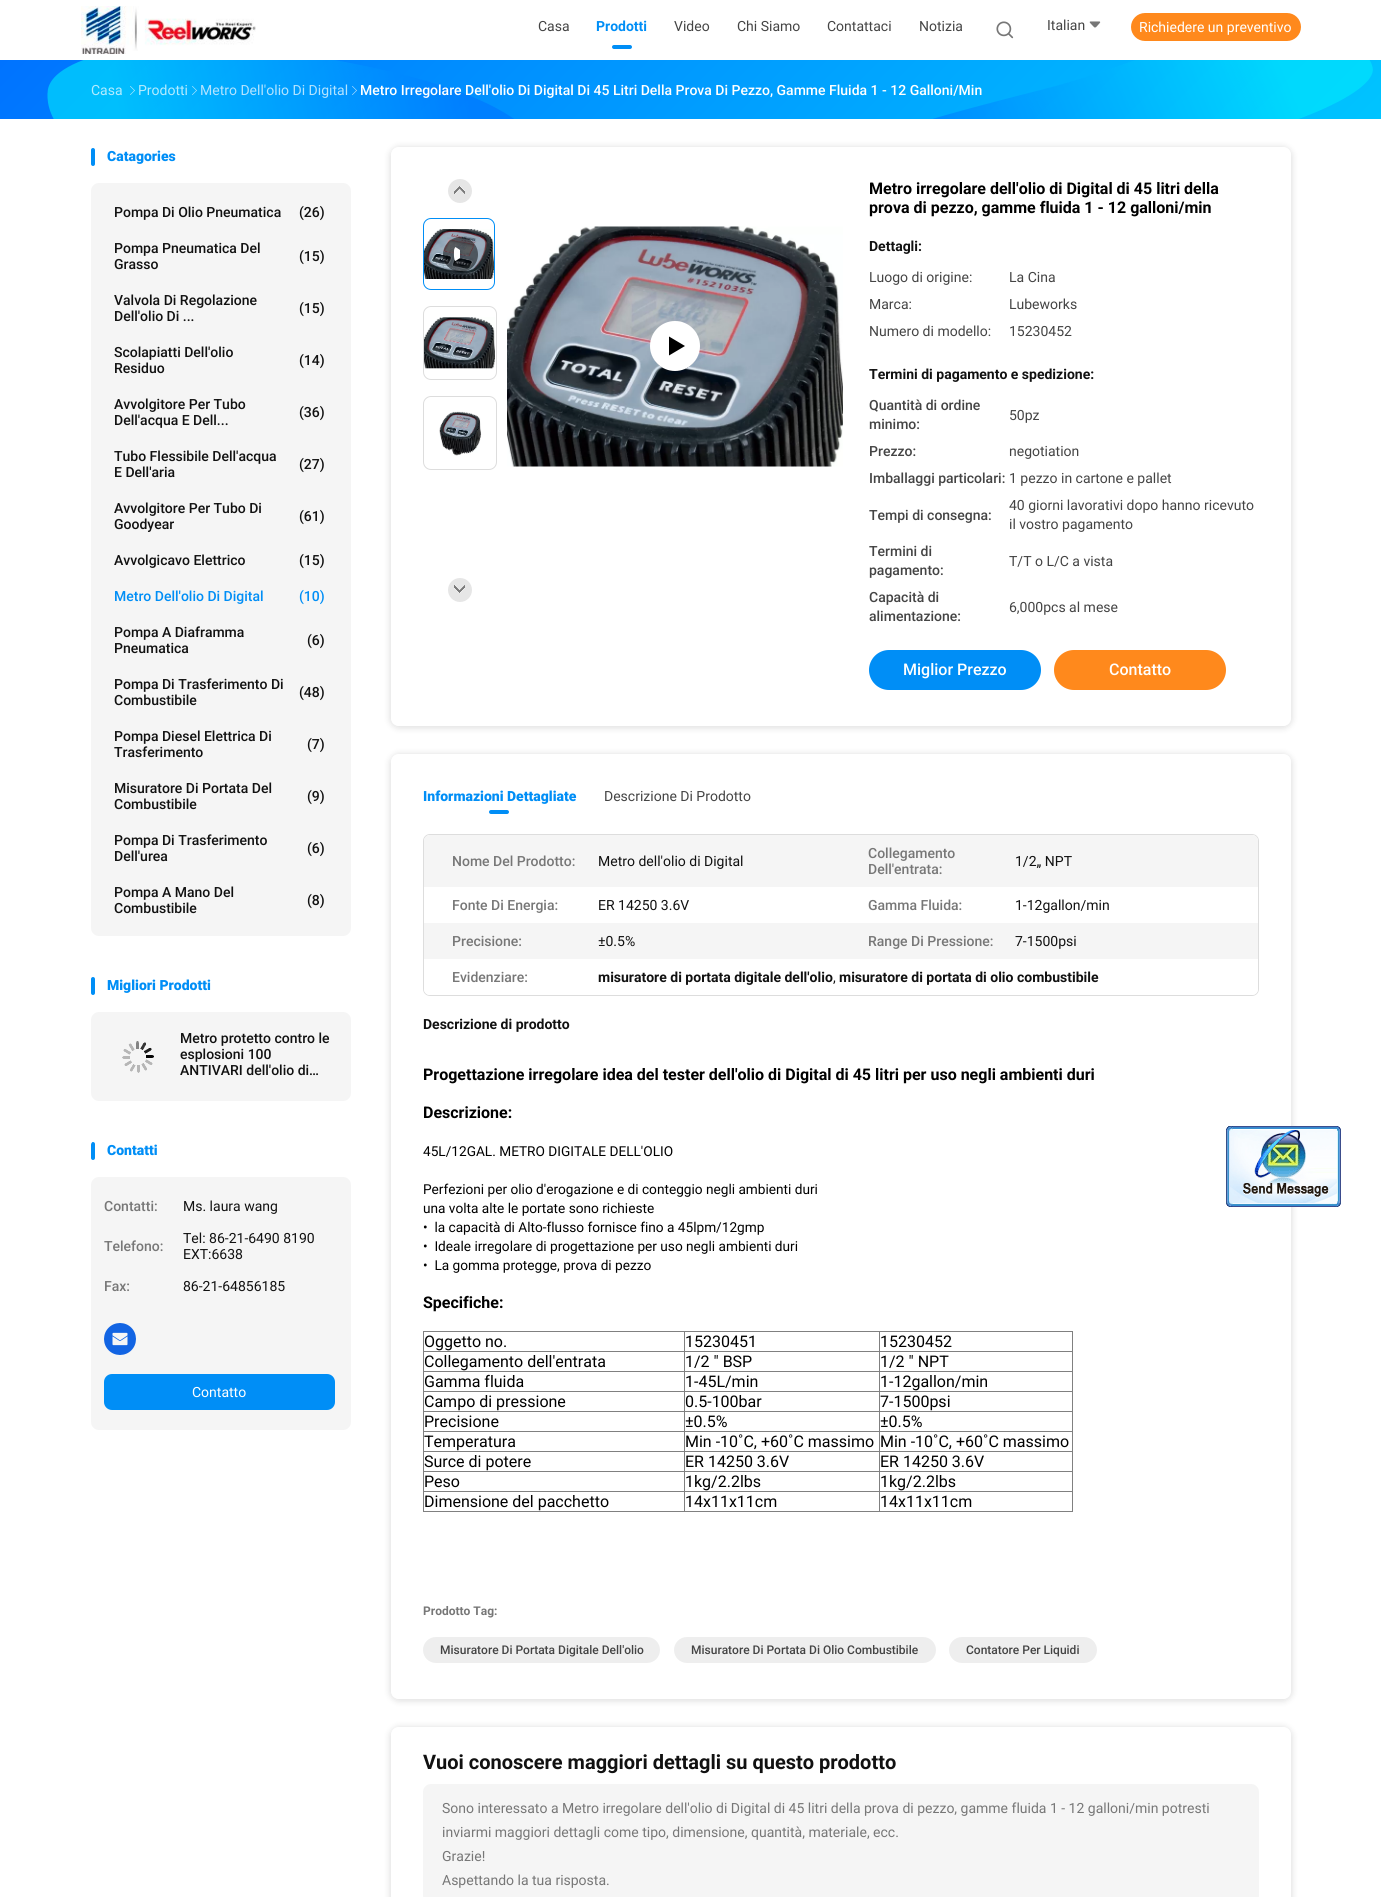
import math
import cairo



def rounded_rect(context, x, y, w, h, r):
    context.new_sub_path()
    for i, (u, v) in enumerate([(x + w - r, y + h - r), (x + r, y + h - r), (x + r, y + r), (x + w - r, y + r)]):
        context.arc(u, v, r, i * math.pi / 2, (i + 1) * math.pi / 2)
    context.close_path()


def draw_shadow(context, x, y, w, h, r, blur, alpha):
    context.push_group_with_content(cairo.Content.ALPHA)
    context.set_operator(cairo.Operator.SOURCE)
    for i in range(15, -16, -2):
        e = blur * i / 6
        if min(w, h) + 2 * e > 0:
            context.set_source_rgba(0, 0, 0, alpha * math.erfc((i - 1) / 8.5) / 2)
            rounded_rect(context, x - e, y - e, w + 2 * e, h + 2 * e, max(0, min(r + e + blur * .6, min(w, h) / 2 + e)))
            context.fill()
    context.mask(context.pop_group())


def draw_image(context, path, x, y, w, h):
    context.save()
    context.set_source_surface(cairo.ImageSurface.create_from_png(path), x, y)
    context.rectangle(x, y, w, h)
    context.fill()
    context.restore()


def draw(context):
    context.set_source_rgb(1, 1, 1)
    context.paint()
    draw_image(context, "images/1.png", 81, 6, 175, 48)
    context.set_source_rgb(0, 142 / 255, 246 / 255)
    rounded_rect(context, 612, 45, 20, 4, 2)
    context.fill()
    draw_image(context, "images/2.png", 996, 21, 18, 18)
    draw_image(context, "images/3.png", 1089, 21, 12, 7)
    context.set_source_rgb(1, 137 / 255, 28 / 255)
    rounded_rect(context, 1131, 13, 170, 28, 14)
    context.fill()
    gradient = cairo.LinearGradient(330, -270, 1051, 450)
    gradient.add_color_stop_rgba(0, 0, 115 / 255, 1, 1)
    gradient.add_color_stop_rgba(1, 0, 196 / 255, 1, 1)
    context.set_source(gradient)
    context.rectangle(0, 60, 1381, 59)
    context.fill()
    draw_image(context, "images/4.png", 47, 60, 467, 59)
    draw_image(context, "images/5.png", 933, 60, 440, 59)
    draw_image(context, "images/6.png", 130, 86, 5, 9)
    draw_image(context, "images/7.png", 192, 86, 5, 9)
    draw_image(context, "images/8.png", 352, 86, 5, 9)
    context.set_source_rgb(0, 142 / 255, 246 / 255)
    rounded_rect(context, 91, 148, 4, 18, 2)
    context.fill()
    context.set_source_rgb(245 / 255, 245 / 255, 245 / 255)
    rounded_rect(context, 91, 183, 260, 753, 8)
    context.fill()
    context.set_source_rgb(0, 142 / 255, 246 / 255)
    rounded_rect(context, 91, 977, 4, 18, 2)
    context.fill()
    context.set_source_rgb(245 / 255, 245 / 255, 245 / 255)
    rounded_rect(context, 91, 1012, 260, 89, 8)
    context.fill()
    draw_image(context, "images/9.png", 122, 1041, 32, 32)
    context.save()
    rounded_rect(context, 91, 1141, 260, 289, 4)
    context.clip()
    context.set_source_rgb(0, 142 / 255, 246 / 255)
    rounded_rect(context, 91, 1142, 4, 18, 2)
    context.fill()
    context.restore()
    rounded_rect(context, 91, 1177, 260, 253, 8)
    context.fill()
    draw_image(context, "images/10.png", 104, 1323, 32, 32)
    context.set_source_rgb(0, 142 / 255, 246 / 255)
    rounded_rect(context, 104, 1374, 231, 36, 8)
    context.fill()
    context.save()
    context.set_fill_rule(cairo.FillRule.EVEN_ODD)
    context.new_path()
    context.move_to(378, 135)
    context.line_to(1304, 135)
    context.line_to(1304, 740)
    context.line_to(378, 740)
    context.close_path()
    context.move_to(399, 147)
    context.line_to(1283, 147)
    context.curve_to(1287.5, 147, 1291, 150.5, 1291, 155)
    context.line_to(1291, 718)
    context.curve_to(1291, 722.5, 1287.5, 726, 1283, 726)
    context.line_to(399, 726)
    context.curve_to(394.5, 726, 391, 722.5, 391, 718)
    context.line_to(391, 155)
    context.curve_to(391, 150.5, 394.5, 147, 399, 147)
    context.close_path()
    context.clip()
    context.set_source_rgb(0, 0, 0)
    draw_shadow(context, 391, 148, 900, 579, 8, 4, 0.16)
    context.restore()
    context.set_source_rgb(230 / 255, 230 / 255, 230 / 255)
    context.arc(460, 191, 12, 0, 2 * math.pi)
    context.fill()
    draw_image(context, "images/11.png", 454, 186, 11, 8)
    rounded_rect(context, 423.5, 218.5, 71, 71, 7.5)
    context.set_source_rgb(0, 142 / 255, 246 / 255)
    context.set_line_width(1)
    context.stroke()
    draw_image(context, "images/12.png", 424, 229, 70, 50)
    context.set_source_rgba(0, 0, 0, 0.5)
    context.arc(460.5, 254.5, 17.5, 0, 2 * math.pi)
    context.fill()
    context.set_source_rgb(1, 1, 1)
    context.new_path()
    context.move_to(454, 251)
    context.curve_to(454, 249.5, 454.5, 248, 455.5, 247)
    context.line_to(460, 250)
    context.line_to(460, 258)
    context.line_to(455.5, 261)
    context.curve_to(453.5, 259.5, 454, 253.5, 454, 251)
    context.close_path()
    context.fill()
    rounded_rect(context, 423.5, 306.5, 73, 73, 7.5)
    context.set_source_rgb(221 / 255, 221 / 255, 221 / 255)
    context.stroke()
    draw_image(context, "images/13.png", 424, 317, 71, 52)
    rounded_rect(context, 423.5, 396.5, 73, 73, 7.5)
    context.stroke()
    draw_image(context, "images/14.png", 439, 411, 43, 45)
    context.set_source_rgb(230 / 255, 230 / 255, 230 / 255)
    context.arc(460, 590, 12, 0, 2 * math.pi)
    context.fill()
    draw_image(context, "images/15.png", 454, 585, 11, 8)
    draw_image(context, "images/16.png", 507, 226, 336, 241)
    context.set_source_rgb(0, 0, 0)
    context.arc(675, 347, 24, 0, 2 * math.pi)
    context.fill()
    draw_image(context, "images/17.png", 650, 321, 50, 50)
    context.set_source_rgb(0, 142 / 255, 246 / 255)
    rounded_rect(context, 869, 650, 172, 40, 20)
    context.fill()
    context.set_source_rgb(1, 137 / 255, 28 / 255)
    rounded_rect(context, 1054, 650, 172, 40, 20)
    context.fill()
    context.save()
    context.set_fill_rule(cairo.FillRule.EVEN_ODD)
    context.new_path()
    context.move_to(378, 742)
    context.line_to(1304, 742)
    context.line_to(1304, 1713)
    context.line_to(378, 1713)
    context.close_path()
    context.move_to(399, 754)
    context.line_to(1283, 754)
    context.curve_to(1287.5, 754, 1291, 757.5, 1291, 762)
    context.line_to(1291, 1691)
    context.curve_to(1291, 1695.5, 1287.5, 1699, 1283, 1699)
    context.line_to(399, 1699)
    context.curve_to(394.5, 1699, 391, 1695.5, 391, 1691)
    context.line_to(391, 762)
    context.curve_to(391, 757.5, 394.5, 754, 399, 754)
    context.close_path()
    context.clip()
    context.set_source_rgb(0, 0, 0)
    draw_shadow(context, 391, 755, 900, 945, 8, 4, 0.16)
    context.restore()
    context.set_source_rgb(0, 142 / 255, 246 / 255)
    rounded_rect(context, 489, 810, 20, 4, 2)
    context.fill()
    rounded_rect(context, 423.5, 834.5, 835, 161, 6.5)
    context.set_source_rgb(221 / 255, 221 / 255, 221 / 255)
    context.stroke()
    context.set_source_rgb(245 / 255, 245 / 255, 245 / 255)
    context.new_path()
    context.move_to(430, 835)
    context.line_to(1252, 835)
    context.curve_to(1255.5, 835, 1258, 837.5, 1258, 841)
    context.line_to(1258, 887)
    context.line_to(424, 887)
    context.line_to(424, 841)
    context.curve_to(424, 837.5, 426.5, 835, 430, 835)
    context.close_path()
    context.fill()
    context.rectangle(424, 923, 834, 36)
    context.fill()
    context.set_source_rgb(1, 1, 1)
    context.new_path()
    context.move_to(424, 959)
    context.line_to(1258, 959)
    context.line_to(1258, 989)
    context.curve_to(1258, 992.5, 1255.5, 995, 1252, 995)
    context.line_to(430, 995)
    context.curve_to(426.5, 995, 424, 992.5, 424, 989)
    context.close_path()
    context.fill()
    context.set_source_rgb(128 / 255, 128 / 255, 128 / 255)
    context.rectangle(423, 1331, 650, 1)
    context.fill()
    context.rectangle(1072, 1331, 1, 181)
    context.fill()
    context.rectangle(423, 1511, 650, 1)
    context.fill()
    context.rectangle(423, 1331, 1, 181)
    context.fill()
    context.rectangle(879, 1351, 194, 1)
    context.fill()
    context.rectangle(879, 1371, 194, 1)
    context.fill()
    context.rectangle(879, 1391, 194, 1)
    context.fill()
    context.rectangle(879, 1411, 194, 1)
    context.fill()
    context.rectangle(879, 1431, 194, 1)
    context.fill()
    context.rectangle(879, 1451, 194, 1)
    context.fill()
    context.rectangle(879, 1471, 194, 1)
    context.fill()
    context.rectangle(879, 1491, 194, 1)
    context.fill()
    context.rectangle(879, 1491, 1, 21)
    context.fill()
    context.rectangle(684, 1491, 196, 1)
    context.fill()
    context.rectangle(879, 1471, 1, 21)
    context.fill()
    context.rectangle(684, 1471, 196, 1)
    context.fill()
    context.rectangle(879, 1451, 1, 21)
    context.fill()
    context.rectangle(684, 1451, 196, 1)
    context.fill()
    context.rectangle(879, 1431, 1, 21)
    context.fill()
    context.rectangle(684, 1431, 196, 1)
    context.fill()
    context.rectangle(879, 1411, 1, 21)
    context.fill()
    context.rectangle(684, 1411, 196, 1)
    context.fill()
    context.rectangle(879, 1391, 1, 21)
    context.fill()
    context.rectangle(684, 1391, 196, 1)
    context.fill()
    context.rectangle(879, 1371, 1, 21)
    context.fill()
    context.rectangle(684, 1371, 196, 1)
    context.fill()
    context.rectangle(879, 1351, 1, 21)
    context.fill()
    context.rectangle(684, 1351, 196, 1)
    context.fill()
    context.rectangle(684, 1491, 1, 21)
    context.fill()
    context.rectangle(423, 1491, 262, 1)
    context.fill()
    context.rectangle(684, 1471, 1, 21)
    context.fill()
    context.rectangle(423, 1471, 262, 1)
    context.fill()
    context.rectangle(684, 1451, 1, 21)
    context.fill()
    context.rectangle(423, 1451, 262, 1)
    context.fill()
    context.rectangle(684, 1431, 1, 21)
    context.fill()
    context.rectangle(423, 1431, 262, 1)
    context.fill()
    context.rectangle(684, 1411, 1, 21)
    context.fill()
    context.rectangle(423, 1411, 262, 1)
    context.fill()
    context.rectangle(684, 1391, 1, 21)
    context.fill()
    context.rectangle(423, 1391, 262, 1)
    context.fill()
    context.rectangle(684, 1371, 1, 21)
    context.fill()
    context.rectangle(423, 1371, 262, 1)
    context.fill()
    context.rectangle(684, 1351, 1, 21)
    context.fill()
    context.rectangle(423, 1351, 262, 1)
    context.fill()
    context.rectangle(684, 1331, 1, 21)
    context.fill()
    context.rectangle(879, 1331, 1, 21)
    context.fill()
    context.set_source_rgb(238 / 255, 238 / 255, 238 / 255)
    rounded_rect(context, 423, 1637, 237, 26, 13)
    context.fill()
    rounded_rect(context, 674, 1637, 262, 26, 13)
    context.fill()
    rounded_rect(context, 949, 1637, 148, 26, 13)
    context.fill()
    context.save()
    context.set_fill_rule(cairo.FillRule.EVEN_ODD)
    context.new_path()
    context.move_to(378, 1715)
    context.line_to(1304, 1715)
    context.line_to(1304, 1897)
    context.line_to(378, 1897)
    context.close_path()
    context.move_to(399, 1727)
    context.line_to(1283, 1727)
    context.curve_to(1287.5, 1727, 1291, 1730.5, 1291, 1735)
    context.line_to(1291, 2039)
    context.curve_to(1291, 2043.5, 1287.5, 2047, 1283, 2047)
    context.line_to(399, 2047)
    context.curve_to(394.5, 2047, 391, 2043.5, 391, 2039)
    context.line_to(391, 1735)
    context.curve_to(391, 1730.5, 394.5, 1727, 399, 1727)
    context.close_path()
    context.clip()
    context.set_source_rgb(0, 0, 0)
    draw_shadow(context, 391, 1728, 900, 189, 8, 4, 0.16)
    context.restore()
    context.set_source_rgb(245 / 255, 245 / 255, 245 / 255)
    rounded_rect(context, 423, 1784, 836, 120, 8)
    context.fill()
    draw_image(context, "images/18.png", 1226, 1126, 115, 81)
    context.select_font_face("Roboto")
    context.set_font_size(14)
    context.set_source_rgb(68 / 255, 68 / 255, 68 / 255)
    context.move_to(538, 31)
    context.show_text("Casa")
    context.select_font_face("Roboto", cairo.FontSlant.NORMAL, cairo.FontWeight.BOLD)
    context.set_source_rgb(0, 142 / 255, 246 / 255)
    context.move_to(596, 31)
    context.show_text("Prodotti")
    context.select_font_face("Roboto")
    context.set_source_rgb(68 / 255, 68 / 255, 68 / 255)
    context.move_to(674, 31)
    context.show_text("Video")
    context.move_to(737, 31)
    context.show_text("Chi Siamo")
    context.move_to(827, 31)
    context.show_text("Contattaci")
    context.move_to(919, 31)
    context.show_text("Notizia")
    context.move_to(1047, 30)
    context.show_text("Italian")
    context.set_source_rgb(1, 1, 1)
    context.move_to(1139, 32)
    context.show_text("Richiedere un preventivo")
    context.set_source_rgb(179 / 255, 235 / 255, 254 / 255)
    context.move_to(91, 95)
    context.show_text("Casa")
    context.move_to(138, 95)
    context.show_text("Prodotti")
    context.set_source_rgb(179 / 255, 227 / 255, 1)
    context.move_to(200, 95)
    context.show_text("Metro Dell'olio Di Digital")
    context.select_font_face("Roboto Medium")
    context.set_source_rgb(1, 1, 1)
    context.move_to(360, 95)
    context.show_text("Metro Irregolare Dell'olio Di Digital Di 45 Litri Della Prova Di Pezzo, Gamme Fluida 1 - 12 Galloni/Min")
    context.select_font_face("Roboto Black")
    context.set_source_rgb(0, 142 / 255, 246 / 255)
    context.move_to(107, 161)
    context.show_text("Catagories")
    context.select_font_face("Roboto Medium")
    context.set_source_rgb(17 / 255, 17 / 255, 17 / 255)
    context.move_to(114, 217)
    context.show_text("Pompa Di Olio Pneumatica")
    context.move_to(299, 217)
    context.show_text("(26)")
    context.move_to(114, 253)
    context.show_text("Pompa Pneumatica Del")
    context.move_to(299, 261)
    context.show_text("(15)")
    context.move_to(114, 269)
    context.show_text("Grasso")
    context.move_to(114, 305)
    context.show_text("Valvola Di Regolazione")
    context.move_to(299, 313)
    context.show_text("(15)")
    context.move_to(114, 321)
    context.show_text("Dell'olio Di ...")
    context.move_to(114, 357)
    context.show_text("Scolapiatti Dell'olio")
    context.move_to(299, 365)
    context.show_text("(14)")
    context.move_to(114, 373)
    context.show_text("Residuo")
    context.move_to(114, 409)
    context.show_text("Avvolgitore Per Tubo")
    context.move_to(299, 417)
    context.show_text("(36)")
    context.move_to(114, 425)
    context.show_text("Dell'acqua E Dell...")
    context.move_to(114, 461)
    context.show_text("Tubo Flessibile Dell'acqua")
    context.move_to(299, 469)
    context.show_text("(27)")
    context.move_to(114, 477)
    context.show_text("E Dell'aria")
    context.move_to(114, 513)
    context.show_text("Avvolgitore Per Tubo Di")
    context.move_to(299, 521)
    context.show_text("(61)")
    context.move_to(114, 529)
    context.show_text("Goodyear")
    context.move_to(114, 565)
    context.show_text("Avvolgicavo Elettrico")
    context.move_to(299, 565)
    context.show_text("(15)")
    context.set_source_rgb(0, 142 / 255, 246 / 255)
    context.move_to(114, 601)
    context.show_text("Metro Dell'olio Di Digital")
    context.move_to(299, 601)
    context.show_text("(10)")
    context.set_source_rgb(17 / 255, 17 / 255, 17 / 255)
    context.move_to(114, 637)
    context.show_text("Pompa A Diaframma")
    context.move_to(307, 645)
    context.show_text("(6)")
    context.move_to(114, 653)
    context.show_text("Pneumatica")
    context.move_to(114, 689)
    context.show_text("Pompa Di Trasferimento Di")
    context.move_to(299, 697)
    context.show_text("(48)")
    context.move_to(114, 705)
    context.show_text("Combustibile")
    context.move_to(114, 741)
    context.show_text("Pompa Diesel Elettrica Di")
    context.move_to(307, 749)
    context.show_text("(7)")
    context.move_to(114, 757)
    context.show_text("Trasferimento")
    context.move_to(114, 793)
    context.show_text("Misuratore Di Portata Del")
    context.move_to(307, 801)
    context.show_text("(9)")
    context.move_to(114, 809)
    context.show_text("Combustibile")
    context.move_to(114, 845)
    context.show_text("Pompa Di Trasferimento")
    context.move_to(307, 853)
    context.show_text("(6)")
    context.move_to(114, 861)
    context.show_text("Dell'urea")
    context.move_to(114, 897)
    context.show_text("Pompa A Mano Del")
    context.move_to(307, 905)
    context.show_text("(8)")
    context.move_to(114, 913)
    context.show_text("Combustibile")
    context.select_font_face("Roboto Black")
    context.set_source_rgb(0, 142 / 255, 246 / 255)
    context.move_to(107, 990)
    context.show_text("Migliori Prodotti")
    context.select_font_face("Roboto Medium")
    context.set_source_rgb(17 / 255, 17 / 255, 17 / 255)
    context.move_to(180, 1043)
    context.show_text("Metro protetto contro le")
    context.move_to(180, 1059)
    context.show_text("esplosioni 100")
    context.move_to(180, 1075)
    context.show_text("ANTIVARI dell'olio di…")
    context.select_font_face("Roboto Black")
    context.set_source_rgb(0, 142 / 255, 246 / 255)
    context.move_to(107, 1155)
    context.show_text("Contatti")
    context.select_font_face("Roboto Medium")
    context.set_source_rgb(119 / 255, 119 / 255, 119 / 255)
    context.move_to(104, 1211)
    context.show_text("Contatti:")
    context.select_font_face("Roboto")
    context.set_source_rgb(17 / 255, 17 / 255, 17 / 255)
    context.move_to(183, 1211)
    context.show_text("Ms. laura wang")
    context.select_font_face("Roboto Medium")
    context.set_source_rgb(119 / 255, 119 / 255, 119 / 255)
    context.move_to(104, 1251)
    context.show_text("Telefono:")
    context.select_font_face("Roboto")
    context.set_source_rgb(17 / 255, 17 / 255, 17 / 255)
    context.move_to(183, 1243)
    context.show_text("Tel: 86-21-6490 8190")
    context.move_to(183, 1259)
    context.show_text("EXT:6638")
    context.select_font_face("Roboto Medium")
    context.set_source_rgb(119 / 255, 119 / 255, 119 / 255)
    context.move_to(104, 1291)
    context.show_text("Fax:")
    context.select_font_face("Roboto")
    context.set_source_rgb(17 / 255, 17 / 255, 17 / 255)
    context.move_to(183, 1291)
    context.show_text("86-21-64856185")
    context.set_source_rgb(1, 1, 1)
    context.move_to(192, 1397)
    context.show_text("Contatto")
    context.select_font_face("Roboto", cairo.FontSlant.NORMAL, cairo.FontWeight.BOLD)
    context.set_font_size(16)
    context.set_source_rgb(0, 0, 0)
    context.move_to(869, 194)
    context.show_text("Metro irregolare dell'olio di Digital di 45 litri della")
    context.move_to(869, 213)
    context.show_text("prova di pezzo, gamme fluida 1 - 12 galloni/min")
    context.set_font_size(14)
    context.set_source_rgb(17 / 255, 17 / 255, 17 / 255)
    context.move_to(869, 251)
    context.show_text("Dettagli:")
    context.select_font_face("Roboto")
    context.set_source_rgb(68 / 255, 68 / 255, 68 / 255)
    context.move_to(869, 282)
    context.show_text("Luogo di origine:")
    context.move_to(1009, 282)
    context.show_text("La Cina")
    context.move_to(869, 309)
    context.show_text("Marca:")
    context.move_to(1009, 309)
    context.show_text("Lubeworks")
    context.move_to(869, 336)
    context.show_text("Numero di modello:")
    context.move_to(1009, 336)
    context.show_text("15230452")
    context.select_font_face("Roboto", cairo.FontSlant.NORMAL, cairo.FontWeight.BOLD)
    context.set_source_rgb(17 / 255, 17 / 255, 17 / 255)
    context.move_to(869, 379)
    context.show_text("Termini di pagamento e spedizione:")
    context.select_font_face("Roboto Medium")
    context.set_source_rgb(68 / 255, 68 / 255, 68 / 255)
    context.move_to(869, 410)
    context.show_text("Quantità di ordine")
    context.move_to(869, 429)
    context.show_text("minimo:")
    context.select_font_face("Roboto")
    context.move_to(1009, 420)
    context.show_text("50pz")
    context.select_font_face("Roboto Medium")
    context.move_to(869, 456)
    context.show_text("Prezzo:")
    context.select_font_face("Roboto")
    context.move_to(1009, 456)
    context.show_text("negotiation")
    context.select_font_face("Roboto Medium")
    context.move_to(869, 483)
    context.show_text("Imballaggi particolari:")
    context.select_font_face("Roboto")
    context.move_to(1009, 483)
    context.show_text("1 pezzo in cartone e pallet")
    context.select_font_face("Roboto Medium")
    context.move_to(869, 520)
    context.show_text("Tempi di consegna:")
    context.select_font_face("Roboto")
    context.move_to(1009, 510)
    context.show_text("40 giorni lavorativi dopo hanno ricevuto")
    context.move_to(1009, 529)
    context.show_text("il vostro pagamento")
    context.select_font_face("Roboto Medium")
    context.move_to(869, 556)
    context.show_text("Termini di")
    context.move_to(869, 575)
    context.show_text("pagamento:")
    context.select_font_face("Roboto")
    context.move_to(1009, 566)
    context.show_text("T/T o L/C a vista")
    context.select_font_face("Roboto Medium")
    context.move_to(869, 602)
    context.show_text("Capacità di")
    context.move_to(869, 621)
    context.show_text("alimentazione:")
    context.select_font_face("Roboto")
    context.move_to(1009, 612)
    context.show_text("6,000pcs al mese")
    context.select_font_face("Roboto Medium")
    context.set_font_size(16)
    context.set_source_rgb(1, 1, 1)
    context.move_to(903, 675)
    context.show_text("Miglior Prezzo")
    context.move_to(1109, 675)
    context.show_text("Contatto")
    context.select_font_face("Roboto Black")
    context.set_font_size(14)
    context.set_source_rgb(0, 142 / 255, 246 / 255)
    context.move_to(423, 801)
    context.show_text("Informazioni Dettagliate")
    context.select_font_face("Roboto")
    context.set_source_rgb(68 / 255, 68 / 255, 68 / 255)
    context.move_to(604, 801)
    context.show_text("Descrizione Di Prodotto")
    context.select_font_face("Roboto Medium")
    context.set_source_rgb(119 / 255, 119 / 255, 119 / 255)
    context.move_to(452, 866)
    context.show_text("Nome Del Prodotto:")
    context.select_font_face("Roboto")
    context.set_source_rgb(17 / 255, 17 / 255, 17 / 255)
    context.move_to(598, 866)
    context.show_text("Metro dell'olio di Digital")
    context.select_font_face("Roboto Medium")
    context.set_source_rgb(119 / 255, 119 / 255, 119 / 255)
    context.move_to(868, 858)
    context.show_text("Collegamento")
    context.move_to(868, 874)
    context.show_text("Dell'entrata:")
    context.select_font_face("Roboto")
    context.set_source_rgb(17 / 255, 17 / 255, 17 / 255)
    context.move_to(1015, 866)
    context.show_text("1/2„ NPT")
    context.select_font_face("Roboto Medium")
    context.set_source_rgb(119 / 255, 119 / 255, 119 / 255)
    context.move_to(452, 910)
    context.show_text("Fonte Di Energia:")
    context.select_font_face("Roboto")
    context.set_source_rgb(17 / 255, 17 / 255, 17 / 255)
    context.move_to(598, 910)
    context.show_text("ER 14250 3.6V")
    context.select_font_face("Roboto Medium")
    context.set_source_rgb(119 / 255, 119 / 255, 119 / 255)
    context.move_to(868, 910)
    context.show_text("Gamma Fluida:")
    context.select_font_face("Roboto")
    context.set_source_rgb(17 / 255, 17 / 255, 17 / 255)
    context.move_to(1015, 910)
    context.show_text("1-12gallon/min")
    context.select_font_face("Roboto Medium")
    context.set_source_rgb(119 / 255, 119 / 255, 119 / 255)
    context.move_to(452, 946)
    context.show_text("Precisione:")
    context.select_font_face("Roboto")
    context.set_source_rgb(17 / 255, 17 / 255, 17 / 255)
    context.move_to(598, 946)
    context.show_text("±0.5%")
    context.select_font_face("Roboto Medium")
    context.set_source_rgb(119 / 255, 119 / 255, 119 / 255)
    context.move_to(868, 946)
    context.show_text("Range Di Pressione:")
    context.select_font_face("Roboto")
    context.set_source_rgb(17 / 255, 17 / 255, 17 / 255)
    context.move_to(1015, 946)
    context.show_text("7-1500psi")
    context.select_font_face("Roboto Medium")
    context.set_source_rgb(119 / 255, 119 / 255, 119 / 255)
    context.move_to(452, 982)
    context.show_text("Evidenziare:")
    context.select_font_face("Roboto", cairo.FontSlant.NORMAL, cairo.FontWeight.BOLD)
    context.set_source_rgb(17 / 255, 17 / 255, 17 / 255)
    context.move_to(598, 982)
    context.show_text("misuratore di portata digitale dell'olio")
    context.select_font_face("Roboto")
    context.move_to(833, 982)
    context.show_text(",")
    context.select_font_face("Roboto", cairo.FontSlant.NORMAL, cairo.FontWeight.BOLD)
    context.move_to(839, 982)
    context.show_text("misuratore di portata di olio combustibile")
    context.move_to(423, 1029)
    context.show_text("Descrizione di prodotto")
    context.set_font_size(16)
    context.set_source_rgb(0, 0, 0)
    context.move_to(423, 1080)
    context.show_text("Progettazione irregolare idea del tester dell'olio di Digital di 45 litri per uso negli ambienti duri")
    context.move_to(423, 1118)
    context.show_text("Descrizione:")
    context.select_font_face("Roboto")
    context.set_font_size(13.65)
    context.move_to(423, 1156)
    context.show_text("45L/12GAL. METRO DIGITALE DELL'OLIO")
    context.move_to(423, 1194)
    context.show_text("Perfezioni per olio d'erogazione e di conteggio negli ambienti duri")
    context.move_to(423, 1213)
    context.show_text("una volta alte le portate sono richieste")
    context.move_to(423, 1232)
    context.show_text("•  la capacità di Alto-flusso fornisce fino a 45lpm/12gmp")
    context.move_to(423, 1251)
    context.show_text("•  Ideale irregolare di progettazione per uso negli ambienti duri")
    context.move_to(423, 1270)
    context.show_text("•  La gomma protegge, prova di pezzo")
    context.select_font_face("Roboto", cairo.FontSlant.NORMAL, cairo.FontWeight.BOLD)
    context.set_font_size(16)
    context.move_to(423, 1308)
    context.show_text("Specifiche:")
    context.select_font_face("Roboto")
    context.move_to(424, 1347)
    context.show_text("Oggetto no.")
    context.move_to(685, 1347)
    context.show_text("15230451")
    context.move_to(880, 1347)
    context.show_text("15230452")
    context.move_to(424, 1367)
    context.show_text("Collegamento dell'entrata")
    context.move_to(685, 1367)
    context.show_text("1/2 \" BSP")
    context.move_to(880, 1367)
    context.show_text("1/2 \" NPT")
    context.move_to(424, 1387)
    context.show_text("Gamma fluida")
    context.move_to(685, 1387)
    context.show_text("1-45L/min")
    context.move_to(880, 1387)
    context.show_text("1-12gallon/min")
    context.move_to(424, 1407)
    context.show_text("Campo di pressione")
    context.move_to(685, 1407)
    context.show_text("0.5-100bar")
    context.move_to(880, 1407)
    context.show_text("7-1500psi")
    context.move_to(424, 1427)
    context.show_text("Precisione")
    context.move_to(685, 1427)
    context.show_text("±0.5%")
    context.move_to(880, 1427)
    context.show_text("±0.5%")
    context.move_to(424, 1447)
    context.show_text("Temperatura")
    context.move_to(685, 1447)
    context.show_text("Min -10˚C, +60˚C massimo")
    context.move_to(880, 1447)
    context.show_text("Min -10˚C, +60˚C massimo")
    context.move_to(424, 1467)
    context.show_text("Surce di potere")
    context.move_to(685, 1467)
    context.show_text("ER 14250 3.6V")
    context.move_to(880, 1467)
    context.show_text("ER 14250 3.6V")
    context.move_to(424, 1487)
    context.show_text("Peso")
    context.move_to(685, 1487)
    context.show_text("1kg/2.2lbs")
    context.move_to(880, 1487)
    context.show_text("1kg/2.2lbs")
    context.move_to(424, 1507)
    context.show_text("Dimensione del pacchetto")
    context.move_to(685, 1507)
    context.show_text("14x11x11cm")
    context.move_to(880, 1507)
    context.show_text("14x11x11cm")
    context.select_font_face("Roboto", cairo.FontSlant.NORMAL, cairo.FontWeight.BOLD)
    context.set_font_size(12)
    context.set_source_rgb(119 / 255, 119 / 255, 119 / 255)
    context.move_to(423, 1615)
    context.show_text("Prodotto Tag:")
    context.select_font_face("Roboto Medium")
    context.set_source_rgb(68 / 255, 68 / 255, 68 / 255)
    context.move_to(440, 1654)
    context.show_text("Misuratore Di Portata Digitale Dell'olio")
    context.move_to(691, 1654)
    context.show_text("Misuratore Di Portata Di Olio Combustibile")
    context.move_to(966, 1654)
    context.show_text("Contatore Per Liquidi")
    context.select_font_face("Roboto", cairo.FontSlant.NORMAL, cairo.FontWeight.BOLD)
    context.set_font_size(20)
    context.set_source_rgb(17 / 255, 17 / 255, 17 / 255)
    context.move_to(423, 1769)
    context.show_text("Vuoi conoscere maggiori dettagli su questo prodotto")
    context.select_font_face("Roboto")
    context.set_font_size(14)
    context.set_source_rgb(119 / 255, 119 / 255, 119 / 255)
    context.move_to(442, 1813)
    context.show_text("Sono interessato a Metro irregolare dell'olio di Digital di 45 litri della prova di pezzo, gamme fluida 1 - 12 galloni/min potresti")
    context.move_to(442, 1837)
    context.show_text("inviarmi maggiori dettagli come tipo, dimensione, quantità, materiale, ecc.")
    context.move_to(442, 1861)
    context.show_text("Grazie!")
    context.move_to(442, 1885)
    context.show_text("Aspettando la tua risposta.")


surface = cairo.ImageSurface(cairo.Format.RGB24, 1381, 1897)
context = cairo.Context(surface)
options = cairo.FontOptions()
options.set_hint_metrics(cairo.HintMetrics.OFF)
options.set_hint_style(cairo.HintStyle.NONE)
context.set_font_options(options)
context.set_miter_limit(4)
draw(context)
surface.write_to_png("out.png")
